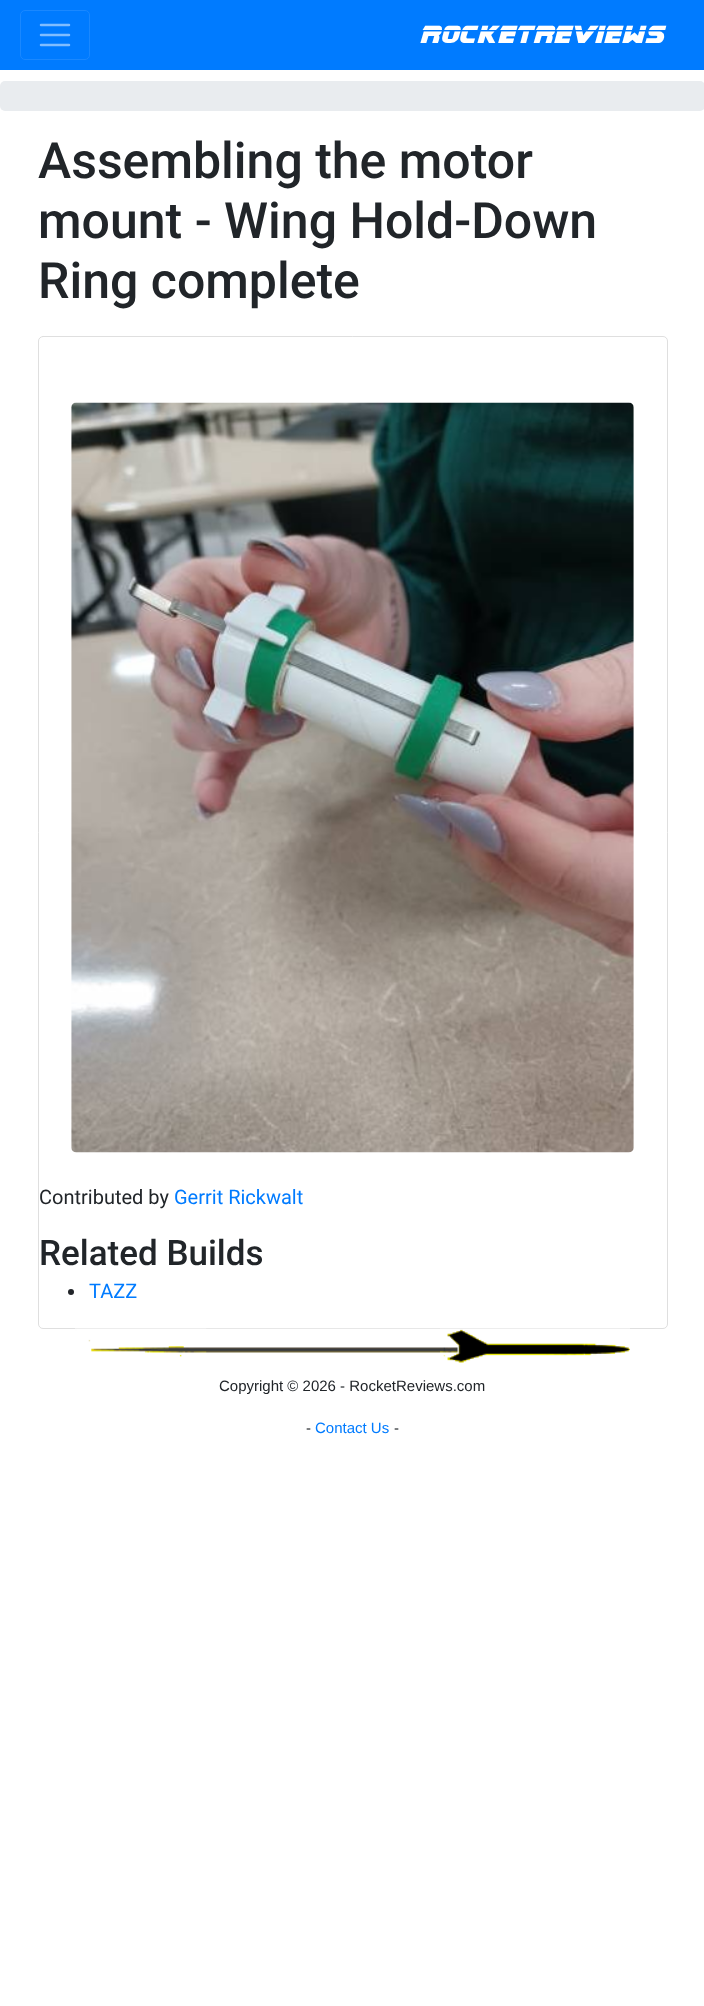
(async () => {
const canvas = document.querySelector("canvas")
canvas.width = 704
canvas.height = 2006
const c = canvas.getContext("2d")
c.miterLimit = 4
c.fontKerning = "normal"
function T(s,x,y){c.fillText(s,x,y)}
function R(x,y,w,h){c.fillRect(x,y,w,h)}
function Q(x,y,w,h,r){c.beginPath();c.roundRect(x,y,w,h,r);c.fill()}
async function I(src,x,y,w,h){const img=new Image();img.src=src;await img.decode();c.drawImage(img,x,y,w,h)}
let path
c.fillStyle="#fff"
R(0,0,704,2006)
c.fillStyle="#007bff"
R(0,0,704,70)
c.beginPath()
c.roundRect(20.5,10.5,69,49,4.5)
c.strokeStyle="#1a88ff"
c.stroke()
path = new Path2D("M41 25h28m-28 10h28m-28 10h28")
c.strokeStyle="#80bdff"
c.lineWidth=2.5
c.lineCap="round"
c.stroke(path)
c.font="italic bold 25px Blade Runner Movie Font"
c.fillStyle="#fff"
T("RocketReviews",421,43)
c.fillStyle="#e9ecef"
Q(0,81,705,30,5)
c.font="500 50px Roboto"
c.fillStyle="#212529"
T("Assembling the motor",38,178)
T("mount - Wing Hold-Down",38,238)
T("Ring complete",38,298)
c.beginPath()
c.roundRect(38.5,336.5,629,992,4.5)
c.strokeStyle="#dfdfdf"
c.lineWidth=1
c.stroke()
await I("1.png",71,402,563,751)
c.font="20px Roboto"
T("Contributed by",39,1204)
c.fillStyle="#007bff"
T("Gerrit Rickwalt",174,1204)
c.font="500 35px Roboto"
c.fillStyle="#212529"
T("Related Builds",39,1265)
c.beginPath()
c.arc(71,1292,3,0,7)
c.fill()
c.font="20px Roboto"
c.fillStyle="#007bff"
T("TAZZ",89,1298)
await I("2.png",75,1328,555,25)
await I("3.png",75,1328,132,29)
await I("4.png",440,1328,190,35)
c.font="15px Liberation Sans"
c.fillStyle="#212529"
T("Copyright © 2026 - RocketReviews.com",219,1391)
T("-",306,1433)
c.fillStyle="#007bff"
T("Contact Us",315,1433)
c.fillStyle="#212529"
T("-",394,1433)
})()
